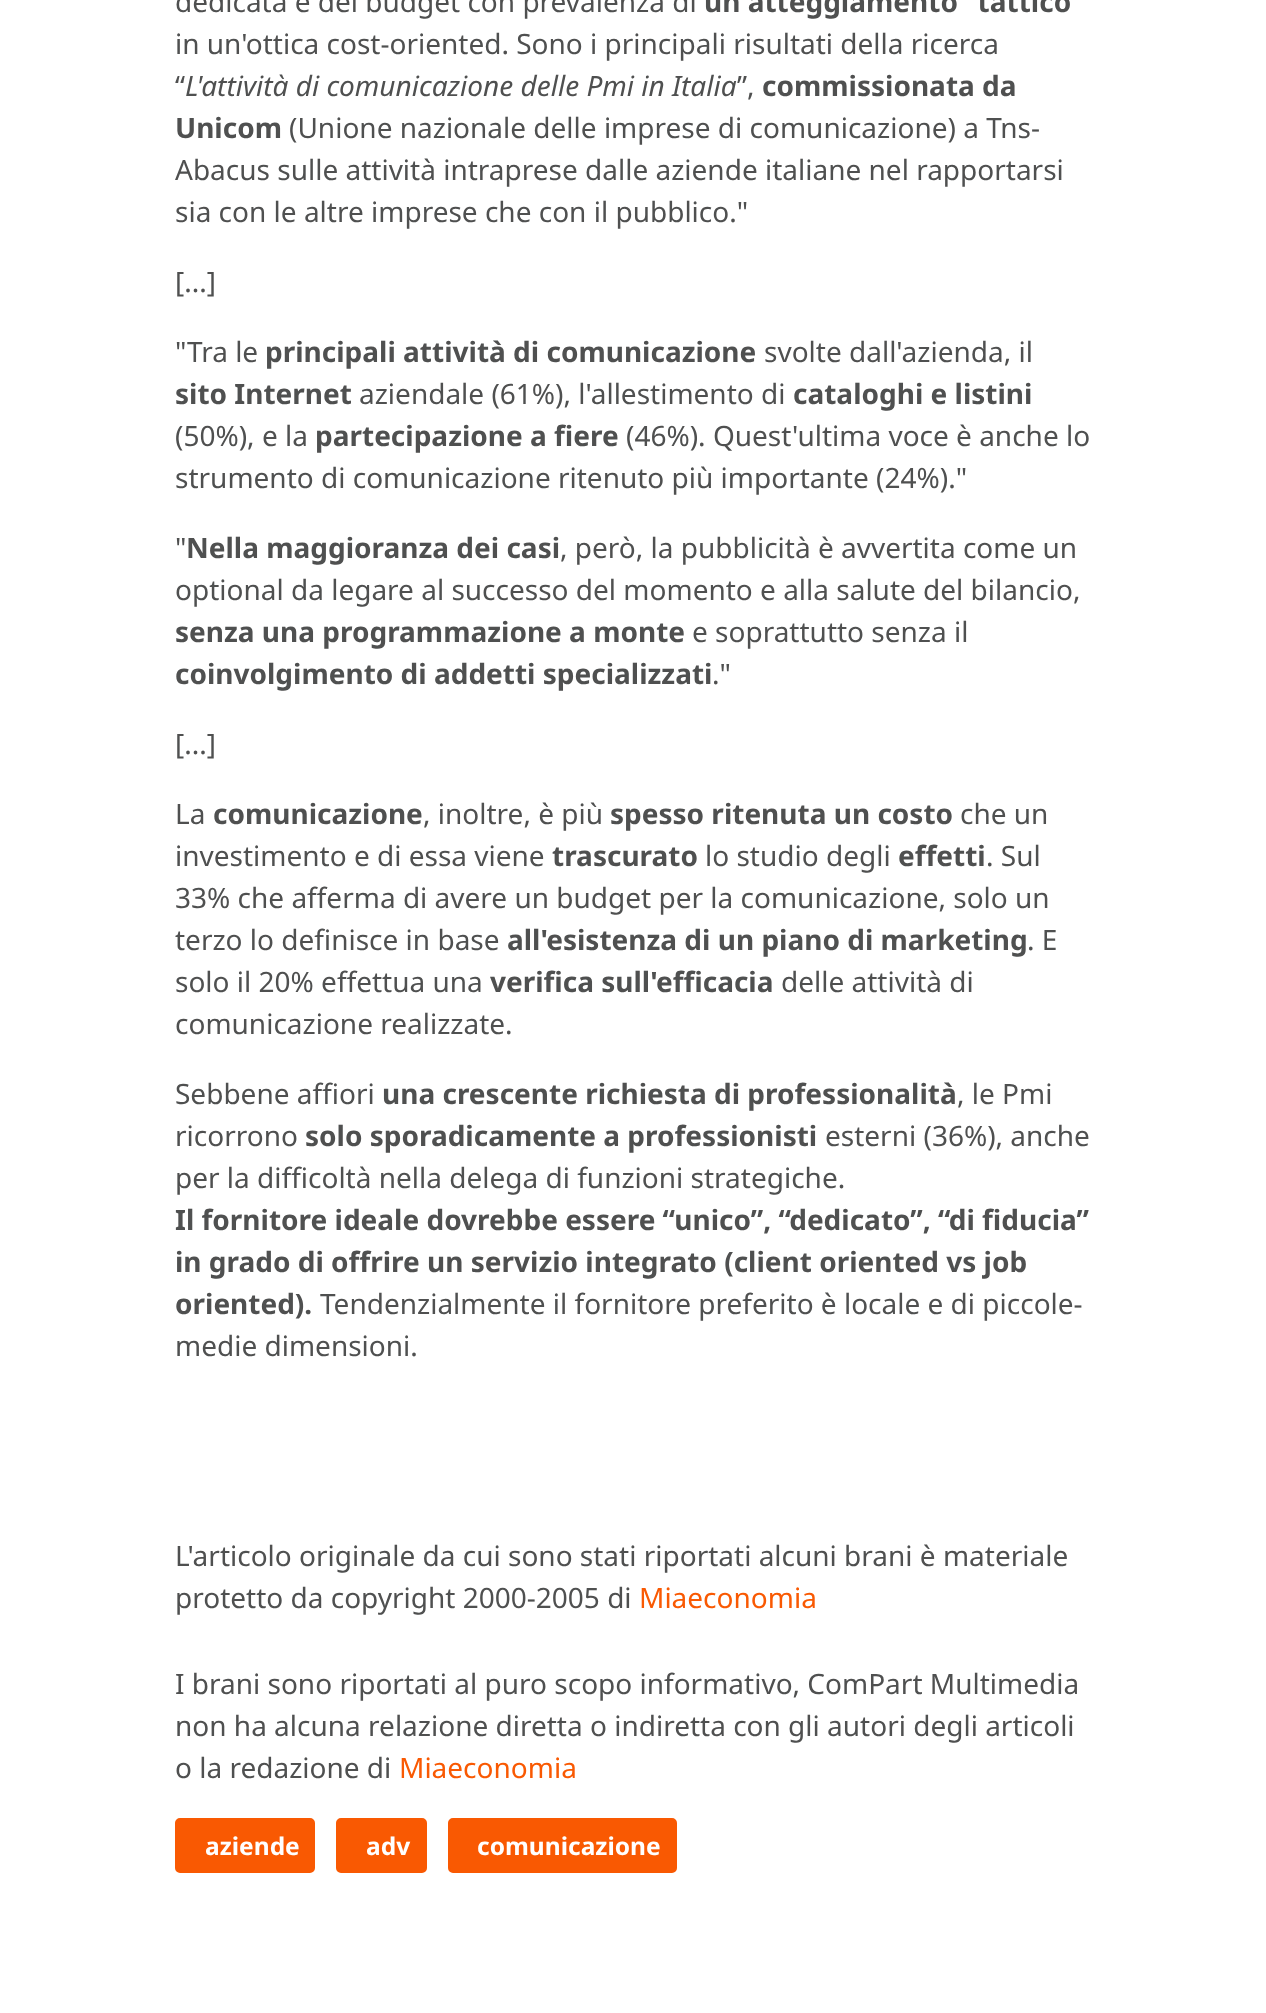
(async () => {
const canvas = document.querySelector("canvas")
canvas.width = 1266
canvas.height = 2013
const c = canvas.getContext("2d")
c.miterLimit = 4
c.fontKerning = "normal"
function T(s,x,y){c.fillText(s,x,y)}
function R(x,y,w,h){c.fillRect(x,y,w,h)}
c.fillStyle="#fff"
R(0,0,1266,2013)
c.font="28px Noto Sans"
c.fillStyle="#4f5050"
T("dedicata e del budget con prevalenza di",175,12)
c.font="bold 28px Noto Sans"
T("un atteggiamento “tattico",704,12)
c.font="28px Noto Sans"
T("in un'ottica cost-oriented. Sono i principali risultati della ricerca",175,54)
T("“",175,96)
c.font="italic 28px Noto Sans"
T("L'attività di comunicazione delle Pmi in Italia",185,96)
c.font="28px Noto Sans"
T("”,",737,96)
c.font="bold 28px Noto Sans"
T("commissionata da",762,96)
T("Unicom",175,138)
c.font="28px Noto Sans"
T("(Unione nazionale delle imprese di comunicazione) a Tns-",289,138)
T("Abacus sulle attività intraprese dalle aziende italiane nel rapportarsi",175,180)
T("sia con le altre imprese che con il pubblico.\"",175,222)
T("[...]",175,292)
T("\"Tra le",175,362)
c.font="bold 28px Noto Sans"
T("principali attività di comunicazione",265,362)
c.font="28px Noto Sans"
T("svolte dall'azienda, il",764,362)
c.font="bold 28px Noto Sans"
T("sito Internet",175,404)
c.font="28px Noto Sans"
T("aziendale (61%), l'allestimento di",359,404)
c.font="bold 28px Noto Sans"
T("cataloghi e listini",793,404)
c.font="28px Noto Sans"
T("(50%), e la",175,446)
c.font="bold 28px Noto Sans"
T("partecipazione a fiere",315,446)
c.font="28px Noto Sans"
T("(46%). Quest'ultima voce è anche lo",626,446)
T("strumento di comunicazione ritenuto più importante (24%).\"",175,488)
T("\"",175,558)
c.font="bold 28px Noto Sans"
T("Nella maggioranza dei casi",186,558)
c.font="28px Noto Sans"
T(", però, la pubblicità è avvertita come un",560,558)
T("optional da legare al successo del momento e alla salute del bilancio,",175,600)
c.font="bold 28px Noto Sans"
T("senza una programmazione a monte",175,642)
c.font="28px Noto Sans"
T("e soprattutto senza il",692,642)
c.font="bold 28px Noto Sans"
T("coinvolgimento di addetti specializzati",175,684)
c.font="28px Noto Sans"
T(".\"",712,684)
T("[...]",175,754)
T("La",175,824)
c.font="bold 28px Noto Sans"
T("comunicazione",213,824)
c.font="28px Noto Sans"
T(", inoltre, è più",423,824)
c.font="bold 28px Noto Sans"
T("spesso ritenuta un costo",610,824)
c.font="28px Noto Sans"
T("che un",960,824)
T("investimento e di essa viene",175,866)
c.font="bold 28px Noto Sans"
T("trascurato",552,866)
c.font="28px Noto Sans"
T("lo studio degli",705,866)
c.font="bold 28px Noto Sans"
T("effetti",898,866)
c.font="28px Noto Sans"
T(". Sul",986,866)
T("33% che afferma di avere un budget per la comunicazione, solo un",175,908)
T("terzo lo definisce in base",175,950)
c.font="bold 28px Noto Sans"
T("all'esistenza di un piano di marketing",507,950)
c.font="28px Noto Sans"
T(". E",1027,950)
T("solo il 20% effettua una",175,992)
c.font="bold 28px Noto Sans"
T("verifica sull'efficacia",490,992)
c.font="28px Noto Sans"
T("delle attività di",781,992)
T("comunicazione realizzate.",175,1034)
T("Sebbene affiori",175,1104)
c.font="bold 28px Noto Sans"
T("una crescente richiesta di professionalità",382,1104)
c.font="28px Noto Sans"
T(", le Pmi",957,1104)
T("ricorrono",175,1146)
c.font="bold 28px Noto Sans"
T("solo sporadicamente a professionisti",305,1146)
c.font="28px Noto Sans"
T("esterni (36%), anche",825,1146)
T("per la difficoltà nella delega di funzioni strategiche.",175,1188)
c.font="bold 28px Noto Sans"
T("Il fornitore ideale dovrebbe essere “unico”, “dedicato”, “di fiducia”",175,1230)
T("in grado di offrire un servizio integrato (client oriented vs job",175,1272)
T("oriented).",175,1314)
c.font="28px Noto Sans"
T("Tendenzialmente il fornitore preferito è locale e di piccole-",320,1314)
T("medie dimensioni.",175,1356)
T("L'articolo originale da cui sono stati riportati alcuni brani è materiale",175,1566)
T("protetto da copyright 2000-2005 di",175,1608)
c.fillStyle="#f95902"
T("Miaeconomia",639,1608)
c.fillStyle="#4f5050"
T("I brani sono riportati al puro scopo informativo, ComPart Multimedia",175,1694)
T("non ha alcuna relazione diretta o indiretta con gli autori degli articoli",175,1736)
T("o la redazione di",175,1778)
c.fillStyle="#f95902"
T("Miaeconomia",399,1778)
c.beginPath()
c.roundRect(176,1819,138,53,4)
c.fill()
c.strokeStyle="#f95902"
c.lineWidth=2
c.stroke()
c.font="bold 24.5px Noto Sans"
c.fillStyle="#fff"
T("aziende",205,1855)
c.fillStyle="#f95902"
c.beginPath()
c.roundRect(337,1819,89,53,4)
c.fill()
c.stroke()
c.fillStyle="#fff"
T("adv",366,1855)
c.fillStyle="#f95902"
c.beginPath()
c.roundRect(449,1819,227,53,4)
c.fill()
c.stroke()
c.fillStyle="#fff"
T("comunicazione",477,1855)
})()
